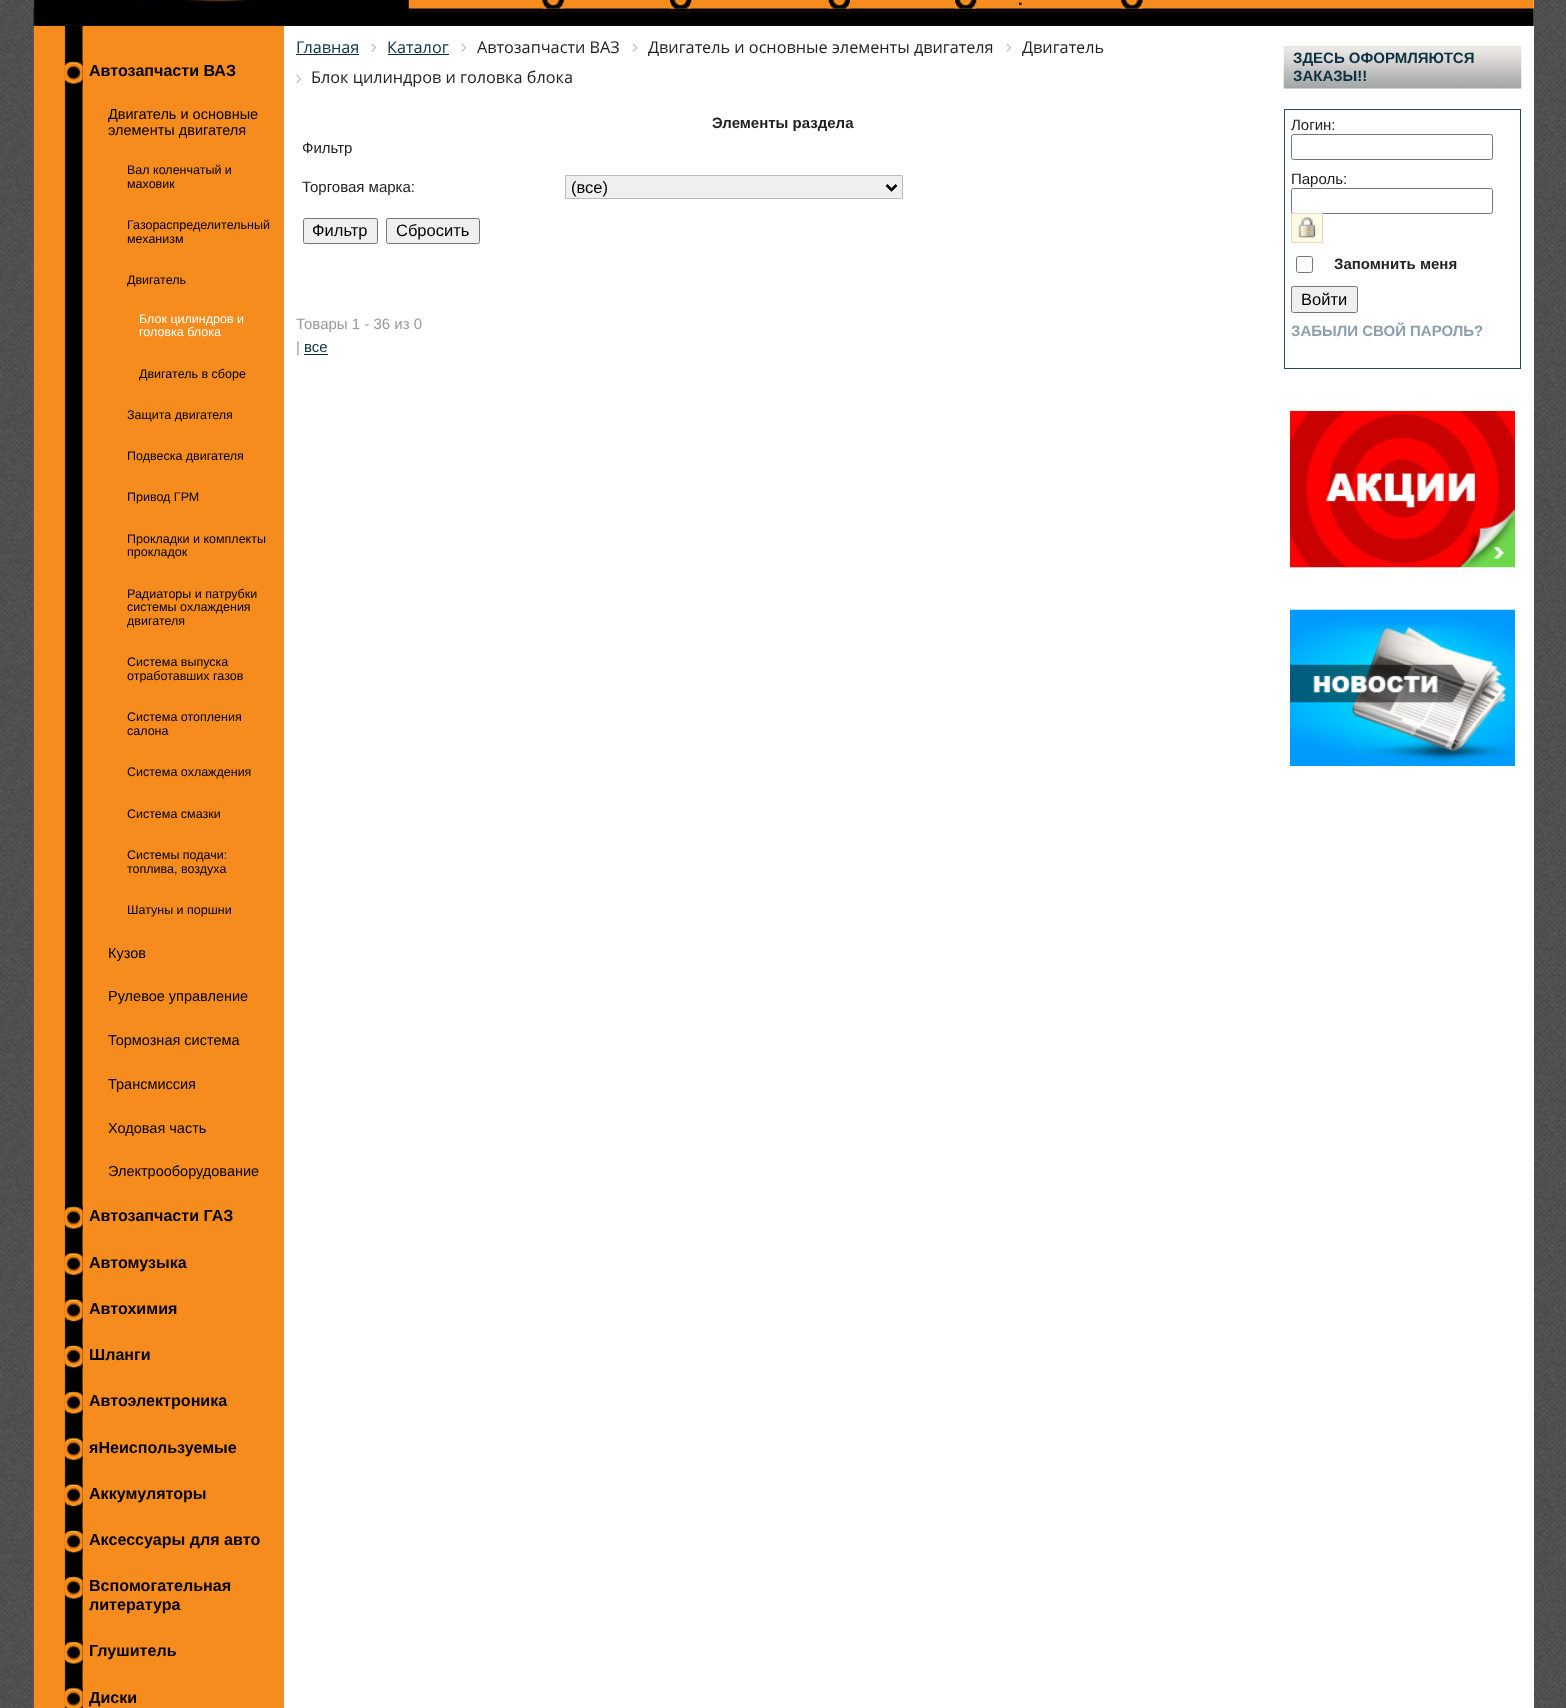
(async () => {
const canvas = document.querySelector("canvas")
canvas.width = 1566
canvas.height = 1708
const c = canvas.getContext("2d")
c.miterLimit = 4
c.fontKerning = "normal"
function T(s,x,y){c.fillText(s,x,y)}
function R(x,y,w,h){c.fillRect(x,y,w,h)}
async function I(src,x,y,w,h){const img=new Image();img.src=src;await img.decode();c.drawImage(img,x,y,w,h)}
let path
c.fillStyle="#fff"
R(0,0,1566,1708)
await I("1.png",0,0,1566,1708)
R(283,0,1251,1708)
await I("2.png",33,0,1501,26)
await I("3.png",33,0,376,26)
await I("4.png",542,0,22,9)
await I("5.png",670,0,22,9)
await I("6.png",828,0,22,9)
await I("5.png",955,0,22,9)
c.font="bold 16.25px Liberation Sans"
c.fillStyle="#000"
T(".",1018,5)
await I("7.png",1121,0,22,9)
await I("8.png",33,26,251,1682)
await I("9.png",33,26,251,1682)
await I("10.png",65,61,18,24)
c.font="bold 16.1px Liberation Sans"
T("Автозапчасти ВАЗ",89,76)
c.font="14.5px Liberation Sans"
T("Двигатель и основные",108,119)
T("элементы двигателя",108,135)
c.font="12.5px Liberation Sans"
T("Вал коленчатый и",127,174)
T("маховик",127,188)
T("Газораспределительный",127,229)
T("механизм",127,243)
T("Двигатель",127,284)
c.fillStyle="#fff"
T("Блок цилиндров и",139,323)
T("головка блока",139,336)
c.fillStyle="#000"
T("Двигатель в сборе",139,378)
T("Защита двигателя",127,419)
T("Подвеска двигателя",127,460)
T("Привод ГРМ",127,501)
T("Прокладки и комплекты",127,543)
T("прокладок",127,556)
T("Радиаторы и патрубки",127,598)
T("системы охлаждения",127,611)
T("двигателя",127,625)
T("Система выпуска",127,666)
T("отработавших газов",127,680)
T("Система отопления",127,721)
T("салона",127,735)
T("Система охлаждения",127,776)
T("Система смазки",127,818)
T("Системы подачи:",127,859)
T("топлива, воздуха",127,873)
T("Шатуны и поршни",127,914)
c.font="14.5px Liberation Sans"
T("Кузов",108,958)
T("Рулевое управление",108,1001)
T("Тормозная система",108,1045)
T("Трансмиссия",108,1089)
T("Ходовая часть",108,1133)
T("Электрооборудование",108,1176)
await I("10.png",65,1206,18,24)
c.font="bold 16.1px Liberation Sans"
T("Автозапчасти ГАЗ",89,1221)
await I("11.png",65,1252,18,24)
T("Автомузыка",89,1268)
await I("12.png",65,1298,18,25)
T("Автохимия",89,1314)
await I("13.png",65,1344,18,25)
T("Шланги",89,1360)
await I("10.png",65,1391,18,24)
T("Автоэлектроника",89,1406)
await I("11.png",65,1437,18,24)
T("яНеиспользуемые",89,1453)
await I("12.png",65,1483,18,25)
T("Аккумуляторы",89,1499)
await I("13.png",65,1529,18,25)
T("Аксессуары для авто",89,1545)
await I("10.png",65,1576,18,24)
T("Вспомогательная",89,1591)
T("литература",89,1610)
await I("10.png",65,1641,18,24)
T("Глушитель",89,1656)
await I("14.png",65,1687,18,21)
T("Диски",89,1703)
c.font="16.25px Open Sans"
c.fillStyle="#0b3043"
T("Главная",296,53)
R(296,54,63,1)
await I("15.png",371,43,6,9)
T("Каталог",387,53)
R(388,54,61,1)
await I("15.png",461,43,6,9)
c.fillStyle="#222"
T("Автозапчасти ВАЗ",477,53)
await I("16.png",632,43,6,9)
T("Двигатель и основные элементы двигателя",648,53)
await I("15.png",1006,43,6,9)
T("Двигатель",1022,53)
await I("17.png",296,74,6,9)
T("Блок цилиндров и головка блока",311,83)
c.font="bold 15px Liberation Sans"
T("Элементы раздела",712,128)
c.font="15px Liberation Sans"
T("Фильтр",302,153)
T("Торговая марка:",302,192)
c.fillStyle="#efefef"
c.beginPath()
c.rect(565.5,175.5,337,23)
c.fill()
c.strokeStyle="#bbb"
c.stroke()
path = new Path2D("M886.5 185l5 5l5-5")
c.strokeStyle="#000"
c.lineWidth=2.5
c.stroke(path)
c.font="16.5px Liberation Sans"
c.fillStyle="#000"
T("(все)",571,193)
c.fillStyle="#efefef"
c.beginPath()
c.roundRect(303.5,218.5,74,25,2)
c.fill()
c.strokeStyle="#767676"
c.lineWidth=1
c.stroke()
c.fillStyle="#000"
T("Фильтр",312,236)
c.fillStyle="#efefef"
c.beginPath()
c.roundRect(386.5,218.5,93,25,2)
c.fill()
c.stroke()
c.fillStyle="#000"
T("Сбросить",396,236)
c.font="15px Liberation Sans"
c.fillStyle="#999"
T("Товары 1 - 36 из 0",296,329)
T("|",296,352)
c.fillStyle="#0b3043"
T("все",304,352)
R(304,354,24,1)
await I("18.png",1283,46,239,43)
c.font="bold 15px Liberation Sans"
T("ЗДЕСЬ ОФОРМЛЯЮТСЯ",1293,63)
T("ЗАКАЗЫ!!",1293,81)
c.strokeStyle="#274b5d"
c.strokeRect(1284.5,109.5,236,259)
c.font="15px Liberation Sans"
c.fillStyle="#222"
T("Логин:",1291,130)
c.beginPath()
c.roundRect(1291.5,134.5,201,25,2)
c.strokeStyle="#767676"
c.stroke()
T("Пароль:",1291,184)
c.beginPath()
c.roundRect(1291.5,188.5,201,25,2)
c.stroke()
c.fillStyle="#fffae3"
c.beginPath()
c.rect(1291.5,213.5,31,29)
c.fill()
c.strokeStyle="#dedbc8"
c.stroke()
await I("19.png",1298,217,18,21)
c.beginPath()
c.roundRect(1296.5,256.5,16,16,2)
c.strokeStyle="#767676"
c.stroke()
c.font="bold 15px Liberation Sans"
c.fillStyle="#222"
T("Запомнить меня",1334,269)
c.fillStyle="#efefef"
c.beginPath()
c.roundRect(1291.5,286.5,66,26,2)
c.fill()
c.stroke()
c.font="16.5px Liberation Sans"
c.fillStyle="#000"
T("Войти",1301,305)
c.font="bold 15px Liberation Sans"
c.fillStyle="#8b9faa"
T("ЗАБЫЛИ СВОЙ ПАРОЛЬ?",1291,336)
await I("20.png",1290,411,225,157)
await I("21.png",1290,609,225,157)
})()
